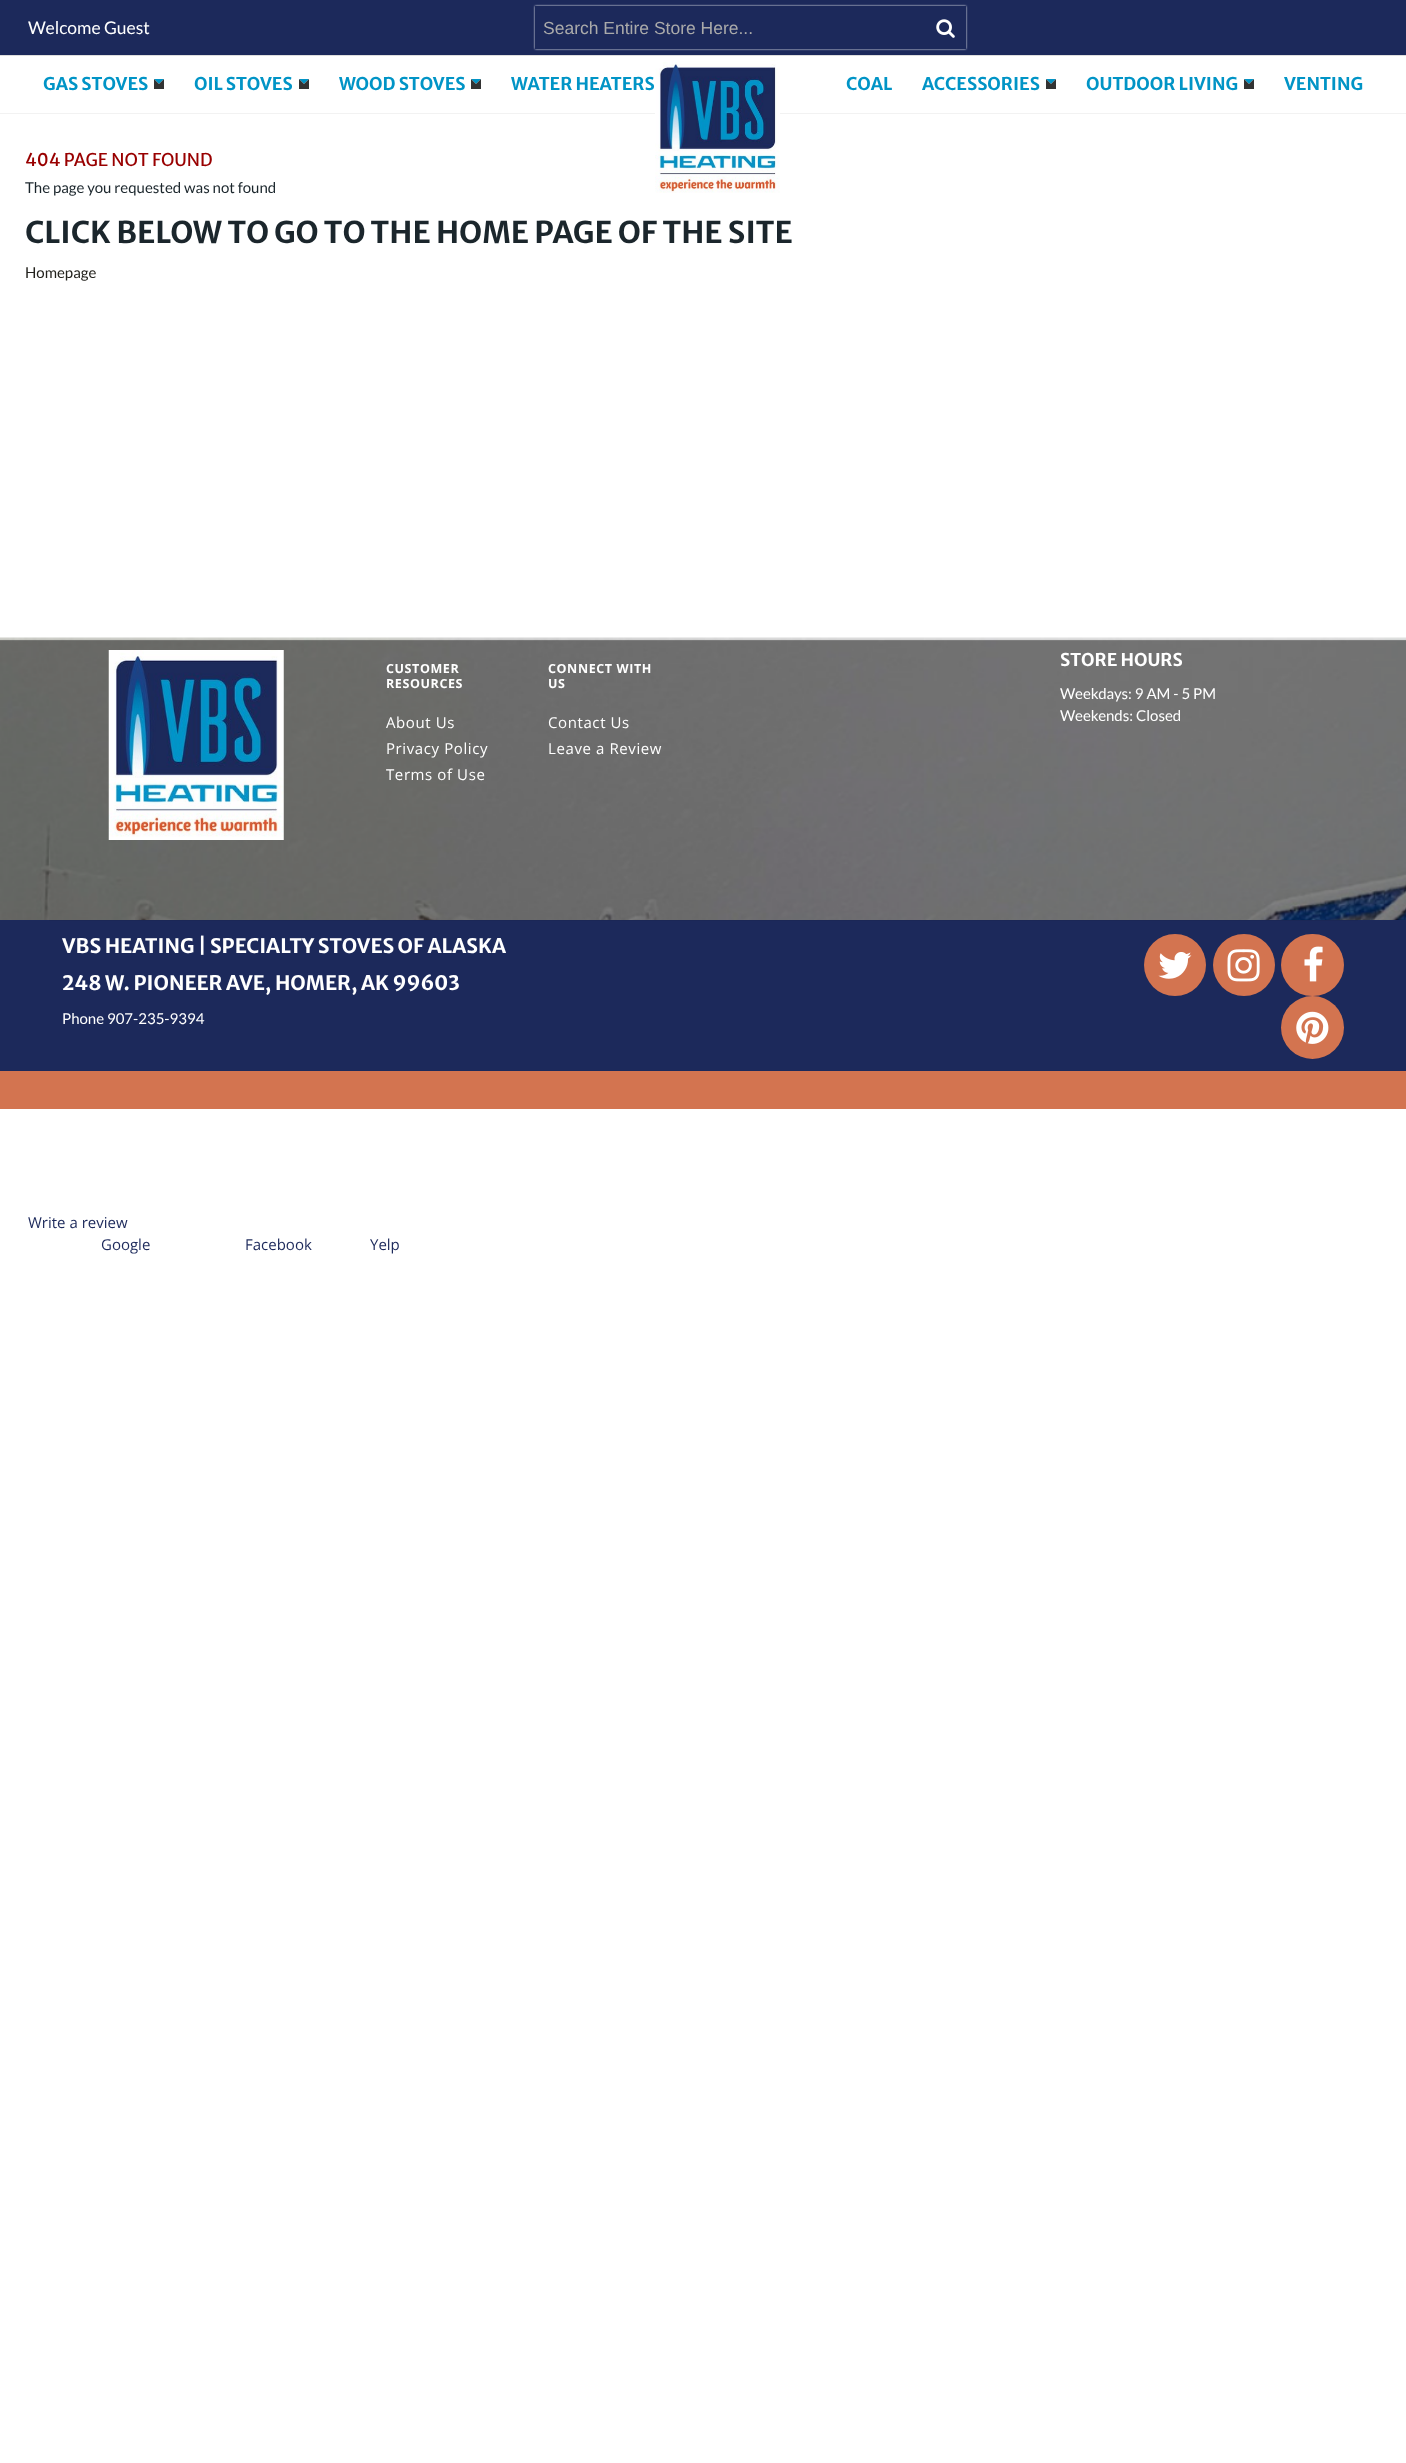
(async () => {
const canvas = document.querySelector("canvas")
canvas.width = 1406
canvas.height = 2463
const c = canvas.getContext("2d")
c.miterLimit = 4
c.fontKerning = "normal"
function T(s,x,y){c.fillText(s,x,y)}
function R(x,y,w,h){c.fillRect(x,y,w,h)}
function Q(x,y,w,h,r){c.beginPath();c.roundRect(x,y,w,h,r);c.fill()}
async function I(src,x,y,w,h){const img=new Image();img.src=src;await img.decode();c.drawImage(img,x,y,w,h)}
let path
c.fillStyle="#fff"
R(0,0,1406,2463)
c.fillStyle="#1c295b"
R(0,0,1406,55)
c.font="17.5px Lato"
c.fillStyle="#fff"
T("Welcome Guest",28,34)
c.save()
path = new Path2D("M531 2h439v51h-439zm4 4h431v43h-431z")
c.clip(path,"evenodd")
c.filter="blur(1px)"
c.beginPath()
c.rect(535,6,431,43)
c.fill()
c.filter="none"
c.restore()
c.font="17.5px Liberation Sans"
c.fillStyle="#aaa"
T("Search Entire Store Here...",543,34)
await I("1.png",936,19,19,19)
c.fillStyle="#ddd"
R(0,55,1406,1)
c.fillStyle="#f2f2f2"
R(0,113,1406,1)
await I("2.png",655,60,125,133)
c.font="bold 17.5px Merriweather Sans"
c.fillStyle="#0194c6"
T("GAS STOVES",43,90)
path = new Path2D("M154 79h10l-5 5z")
c.fill(path)
c.fillStyle="#333"
path = new Path2D("M164 79v10l-5-5z")
c.fill(path)
R(154,84,10,5)
path = new Path2D("M154 89v-10l5 5z")
c.fill(path)
c.fillStyle="#0194c6"
T("OIL STOVES",194,90)
path = new Path2D("M299 79h10l-5 5z")
c.fill(path)
c.fillStyle="#333"
path = new Path2D("M309 79v10l-5-5z")
c.fill(path)
R(299,84,10,5)
path = new Path2D("M299 89v-10l5 5z")
c.fill(path)
c.fillStyle="#0194c6"
T("WOOD STOVES",339,90)
path = new Path2D("M471 79h10l-5 5z")
c.fill(path)
c.fillStyle="#333"
path = new Path2D("M481 79v10l-5-5z")
c.fill(path)
R(471,84,10,5)
path = new Path2D("M471 89v-10l5 5z")
c.fill(path)
c.fillStyle="#0194c6"
T("WATER HEATERS",511,90)
T("COAL",846,90)
T("ACCESSORIES",922,90)
path = new Path2D("M1046 79h10l-5 5z")
c.fill(path)
c.fillStyle="#333"
path = new Path2D("M1056 79v10l-5-5z")
c.fill(path)
R(1046,84,10,5)
path = new Path2D("M1046 89v-10l5 5z")
c.fill(path)
c.fillStyle="#0194c6"
T("OUTDOOR LIVING",1086,90)
path = new Path2D("M1244 79h10l-5 5z")
c.fill(path)
c.fillStyle="#333"
path = new Path2D("M1254 79v10l-5-5z")
c.fill(path)
R(1244,84,10,5)
path = new Path2D("M1244 89v-10l5 5z")
c.fill(path)
c.fillStyle="#0194c6"
T("VENTING",1284,90)
c.font="17.5px Merriweather Sans"
c.fillStyle="#900"
T("404 PAGE NOT FOUND",25,166)
c.font="15px Lato"
c.fillStyle="#1b262c"
T("The page you requested was not found",25,193)
c.font="bold 30px Merriweather Sans"
T("CLICK BELOW TO GO TO THE HOME PAGE OF THE SITE",25,243)
c.font="15px Lato"
c.fillStyle="#23221d"
T("Homepage",25,278)
await I("3.png",0,637,1406,283)
await I("4.png",108,650,176,190)
c.letterSpacing="0.6px"
c.font="bold 12.5px Open Sans"
c.fillStyle="#fff"
T("CUSTOMER",386,673)
T("RESOURCES",386,688)
c.font="15px Open Sans"
T("About Us",386,728)
T("Privacy Policy",386,754)
T("Terms of Use",386,780)
c.font="bold 12.5px Open Sans"
T("CONNECT WITH",548,673)
T("US",548,688)
c.font="15px Open Sans"
T("Contact Us",548,728)
T("Leave a Review",548,754)
c.letterSpacing="0px"
c.font="bold 17.5px Merriweather Sans"
T("STORE HOURS",1060,666)
c.font="15px Lato"
T("Weekdays: 9 AM - 5 PM",1060,699)
T("Weekends: Closed",1060,721)
c.fillStyle="#1c295b"
R(0,920,1406,151)
c.fillStyle="#1b2756"
R(49,920,1309,1)
c.font="bold 20px Merriweather Sans"
c.fillStyle="#fff"
T("VBS HEATING | SPECIALTY STOVES OF ALASKA",62,953)
T("248 W. PIONEER AVE, HOMER, AK 99603",62,990)
c.font="15px Lato"
T("Phone 907-235-9394",62,1024)
c.fillStyle="#d37450"
c.beginPath()
c.arc(1175,965,31,0,7)
c.fill()
await I("5.png",1158,952,34,27)
c.beginPath()
c.arc(1244,965,31,0,7)
c.fill()
await I("6.png",1227,949,33,33)
Q(1281,934,63,62,31)
await I("7.png",1304,946,19,36)
c.beginPath()
c.arc(1312.5,1027.5,31.5,0,7)
c.fill()
await I("8.png",1296,1011,33,33)
R(0,1071,1406,38)
c.font="15px Open Sans"
c.fillStyle="#1c295b"
T("Write a review",28,1228)
T("Google",101,1250)
T("Facebook",245,1250)
T("Yelp",370,1250)
})()
